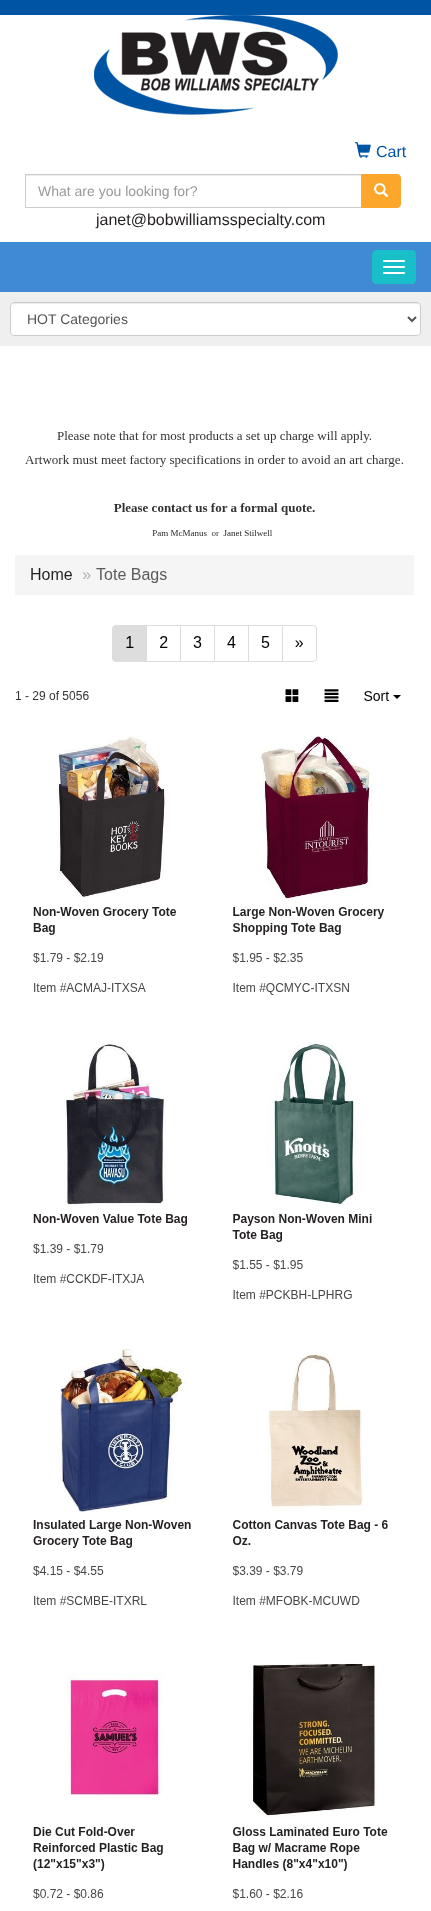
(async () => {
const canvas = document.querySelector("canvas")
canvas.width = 431
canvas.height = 1911
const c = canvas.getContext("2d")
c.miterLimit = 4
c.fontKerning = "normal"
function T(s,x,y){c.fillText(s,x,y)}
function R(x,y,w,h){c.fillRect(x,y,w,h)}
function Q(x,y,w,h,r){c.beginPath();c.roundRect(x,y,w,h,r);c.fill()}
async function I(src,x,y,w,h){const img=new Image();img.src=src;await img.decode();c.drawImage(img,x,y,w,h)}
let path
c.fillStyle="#0054a4"
R(0,0,431,1911)
c.fillStyle="#fff"
R(0,15,431,227)
await I("1.png",94,15,244,100)
await I("2.png",355,142,16,16)
c.font="16px Liberation Sans"
c.fillStyle="#0054a4"
T("Cart",376,157)
c.fillStyle="#ececec"
R(26,175,335,1)
c.strokeStyle="#ccc"
c.strokeRect(25.5,174.5,336,33)
c.font="14px Liberation Sans"
c.fillStyle="#999"
T("What are you looking for?",38,196)
c.fillStyle="#fca72c"
c.beginPath()
c.roundRect(361.5,174.5,39,33,[0,3.5,3.5,0])
c.fill()
c.strokeStyle="#fca72c"
c.stroke()
await I("3.png",374,183,15,14)
c.font="16px Liberation Sans"
c.fillStyle="#231f20"
T("janet@bobwilliamsspecialty.com",96,225)
c.fillStyle="#3f8ad2"
R(0,242,431,50)
c.fillStyle="#18bec8"
c.beginPath()
c.roundRect(372.5,250.5,43,33,3.5)
c.fill()
c.strokeStyle="#18bec8"
c.stroke()
c.fillStyle="#fff"
Q(383,260,22,2,1)
Q(383,266,22,2,1)
Q(383,272,22,2,1)
R(0,346,431,1565)
c.fillStyle="#efefef"
R(0,292,431,54)
c.fillStyle="#fff"
Q(10,302,411,34,4)
c.fillStyle="#ececec"
path = new Path2D("M14 304h403c2 0 3 1 3 3c0-2-1-4-3-4h-403c-2 0-3 2-3 4c0-2 1-3 3-3z")
c.fill(path)
c.beginPath()
c.roundRect(10.5,302.5,410,33,3.5)
c.strokeStyle="#ccc"
c.stroke()
path = new Path2D("M408 317l4 4l4-4")
c.strokeStyle="#555"
c.lineWidth=2
c.stroke(path)
c.font="14px Liberation Sans"
c.fillStyle="#555"
T("HOT Categories",27,324)
await I("4.png",15,431,399,1468)
})()
